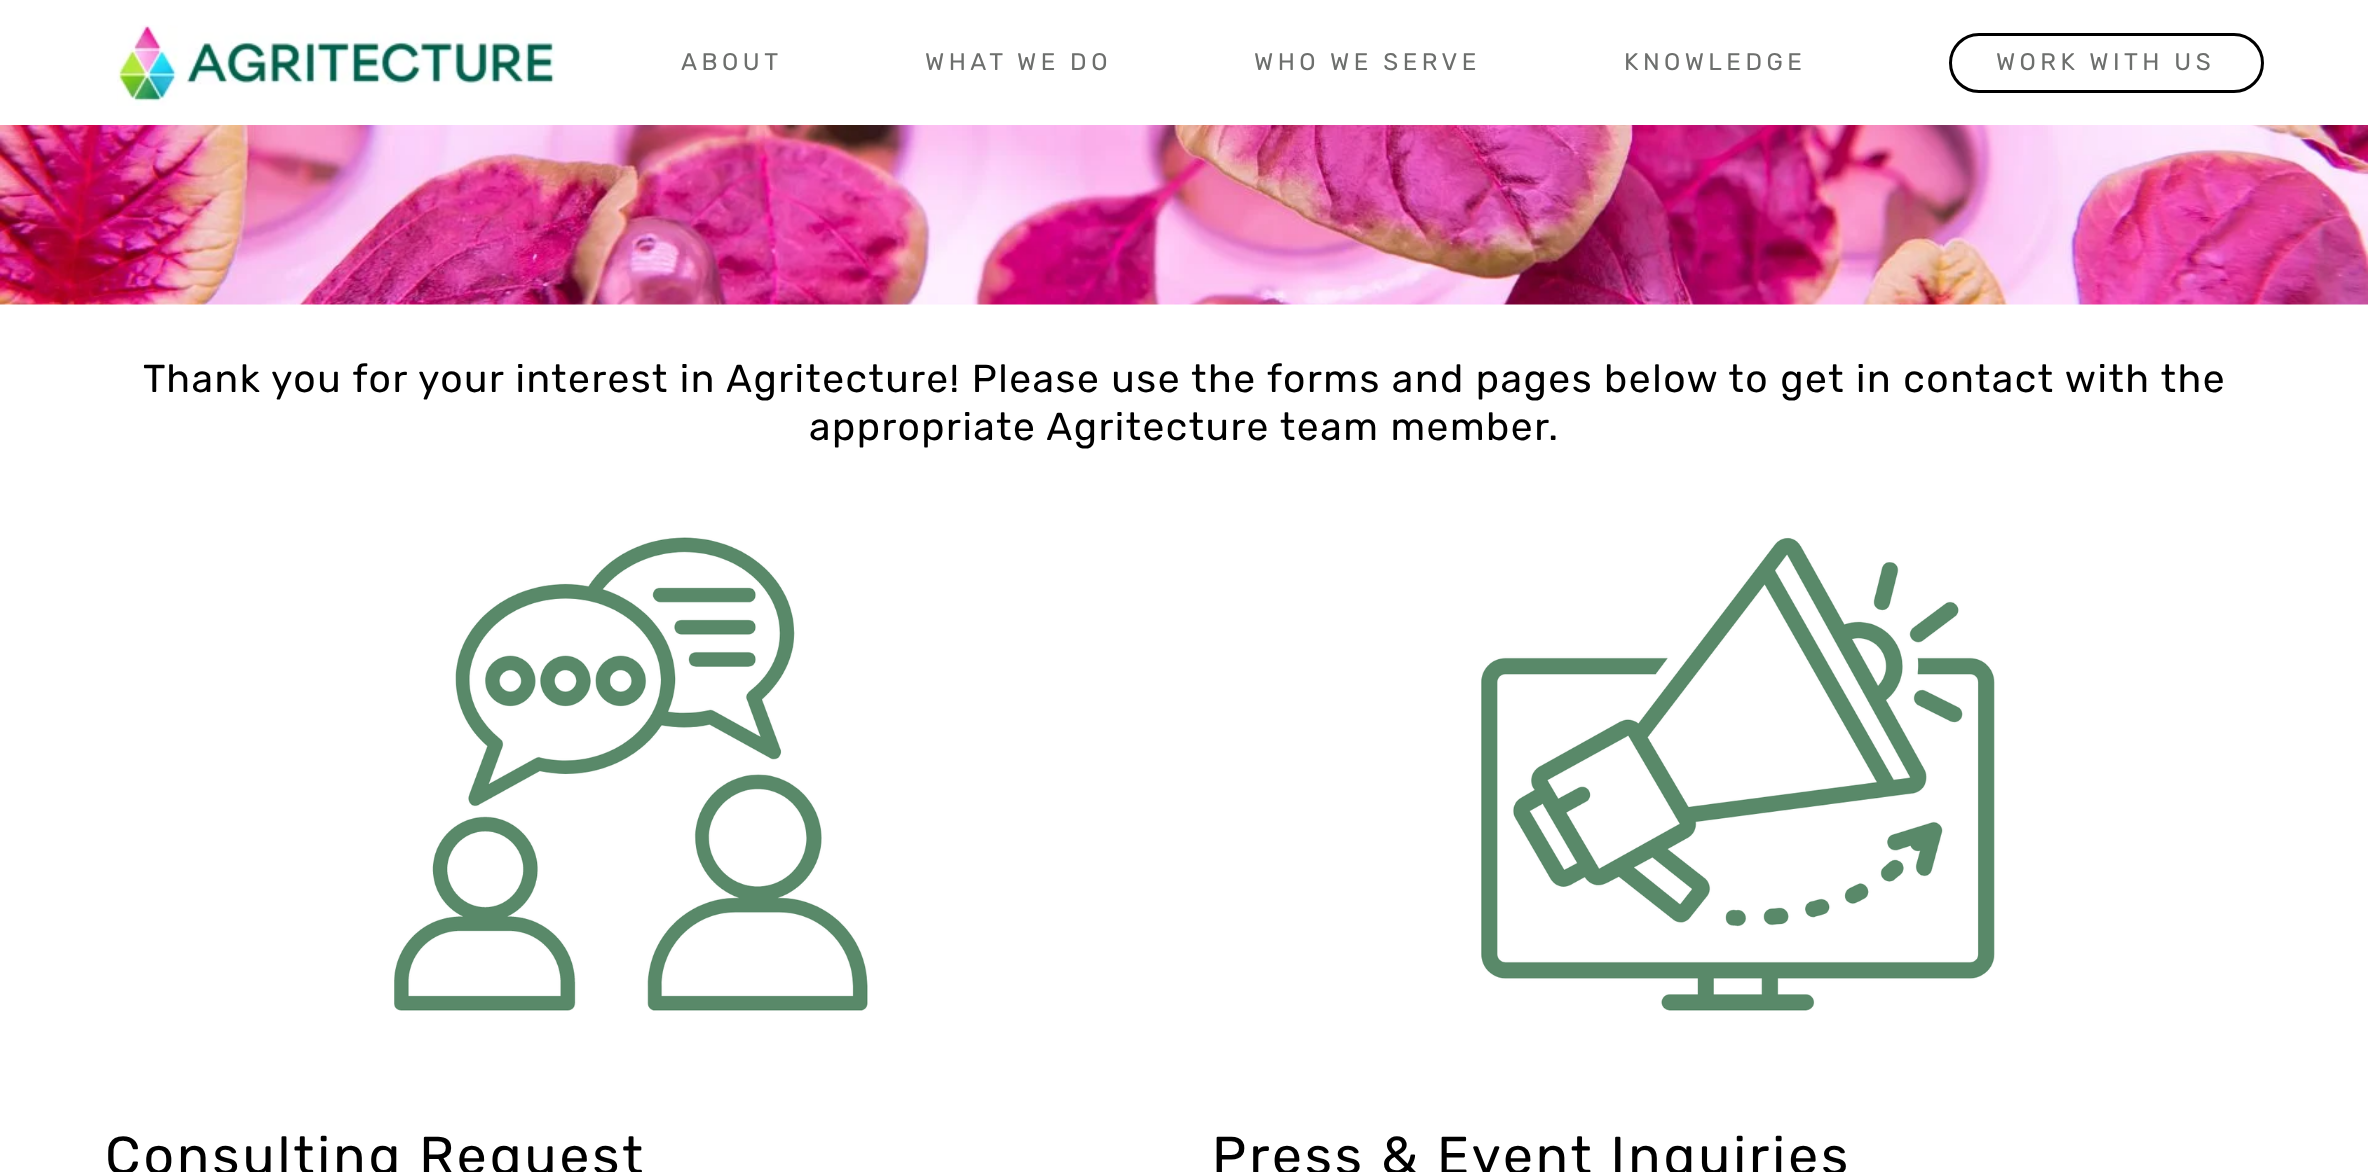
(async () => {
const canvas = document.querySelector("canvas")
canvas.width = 2368
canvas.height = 1172
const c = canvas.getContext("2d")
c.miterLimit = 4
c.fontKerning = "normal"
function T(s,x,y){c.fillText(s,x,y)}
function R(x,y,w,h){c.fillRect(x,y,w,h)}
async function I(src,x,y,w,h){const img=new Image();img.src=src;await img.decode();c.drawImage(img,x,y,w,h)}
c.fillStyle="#fff"
R(0,0,2368,1172)
await I("1.png",117,25,438,81)
c.letterSpacing="4.5px"
c.font="24px Rubik"
c.fillStyle="#6d6f6d"
T("ABOUT",681,70)
T("WHAT WE DO",925,70)
T("WHO WE SERVE",1254,70)
T("KNOWLEDGE",1624,70)
c.beginPath()
c.roundRect(1950.5,34.5,312,57,28.5)
c.strokeStyle="#000"
c.lineWidth=3
c.stroke()
T("WORK WITH US",1996,70)
await I("2.png",0,125,2368,180)
c.letterSpacing="1.5px"
c.font="39px Rubik"
c.fillStyle="#000"
T("Thank you for your interest in Agritecture! Please use the forms and pages below to get in contact with the",143,392)
T("appropriate Agritecture team member.",809,440)
await I("3.png",394,537,474,474)
c.letterSpacing="3px"
c.font="53.25px Rubik"
T("Consulting Request",105,1174)
await I("4.png",1481,537,514,474)
T("Press & Event Inquiries",1212,1174)
})()
